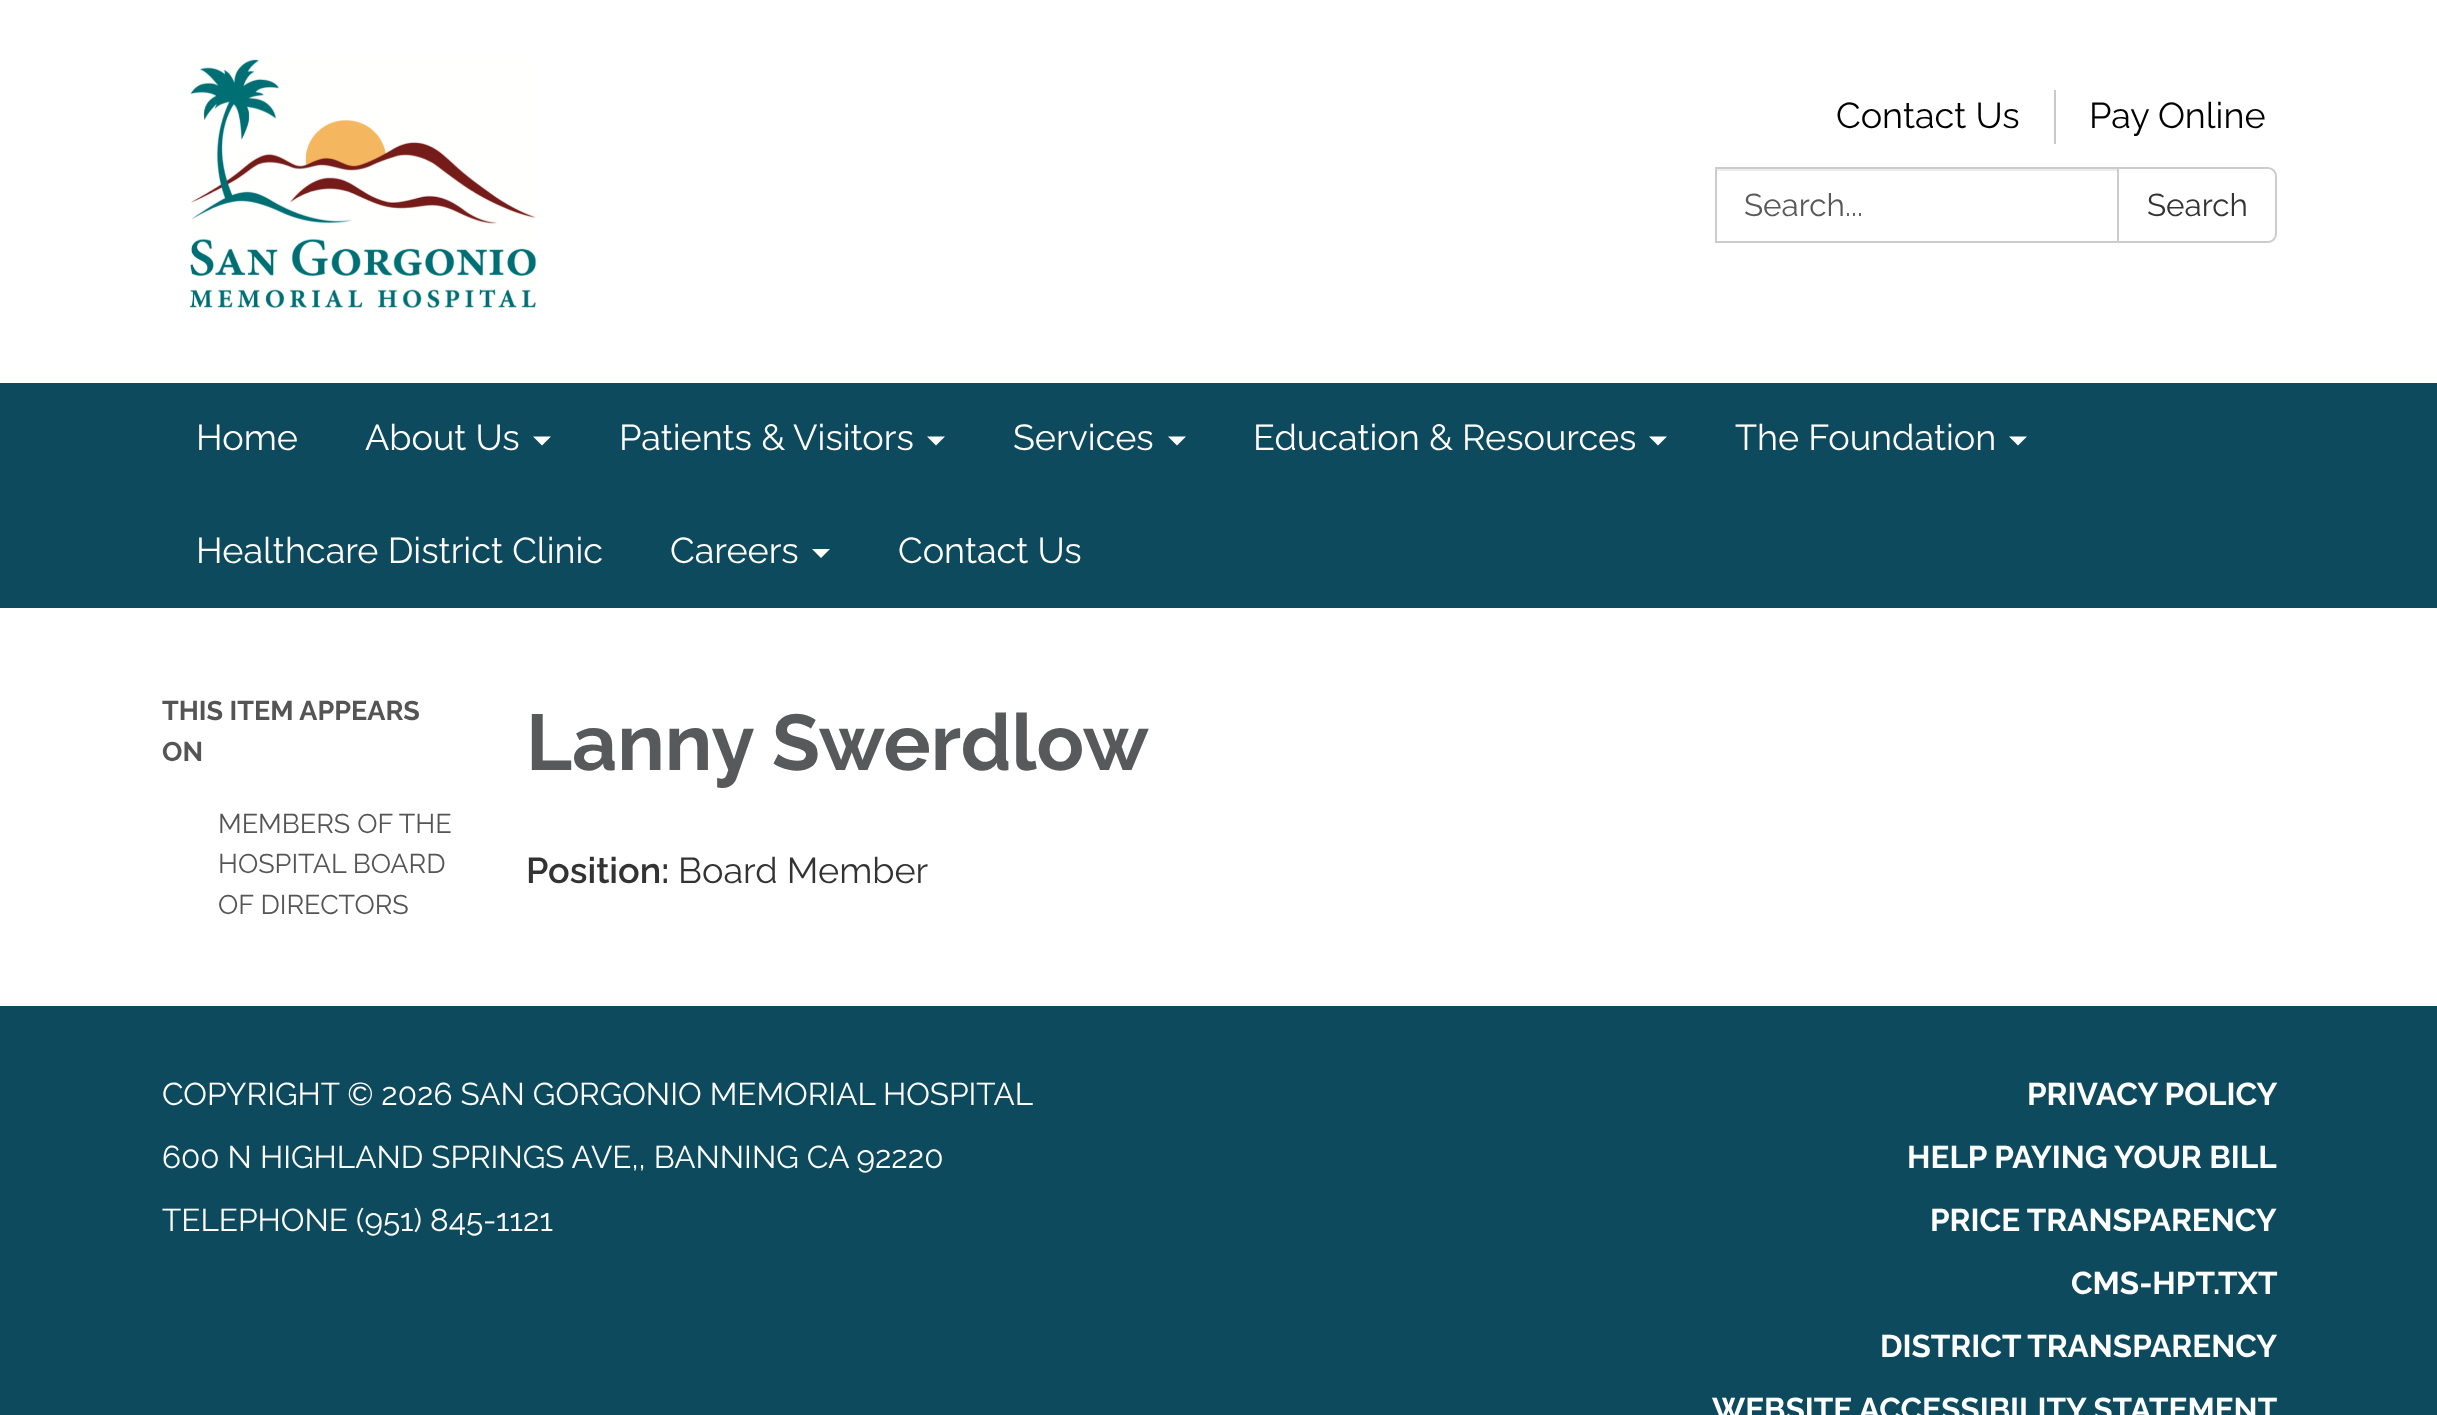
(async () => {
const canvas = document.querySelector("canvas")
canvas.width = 2437
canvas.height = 1415
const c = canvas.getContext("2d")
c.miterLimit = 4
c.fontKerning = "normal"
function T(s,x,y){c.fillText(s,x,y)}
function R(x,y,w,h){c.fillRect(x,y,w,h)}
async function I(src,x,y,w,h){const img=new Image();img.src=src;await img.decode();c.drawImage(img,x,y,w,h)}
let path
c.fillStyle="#0d4a5e"
R(0,0,2437,1415)
c.fillStyle="#fff"
R(0,0,2437,383)
await I("1.png",190,59,346,249)
c.font="36px Raleway"
c.fillStyle="#000"
T("Contact Us",1836,128)
c.fillStyle="#c8c9cb"
R(2054,90,2,54)
c.fillStyle="#000"
T("Pay Online",2089,128)
c.fillStyle="#ececec"
R(1717,169,400,2)
c.strokeStyle="#ccc"
c.lineWidth=2
c.strokeRect(1716,168,403,74)
c.font="31.5px Raleway"
c.fillStyle="#58595b"
T("Search...",1744,216)
c.fillStyle="#fff"
c.beginPath()
c.roundRect(2118,168,158,74,[0,8,8,0])
c.fill()
c.stroke()
c.fillStyle="#333"
T("Search",2147,216)
c.font="36px Raleway"
c.fillStyle="#fff"
T("Home",196,450)
T("About Us",365,450)
path = new Path2D("M533 436.5h18l-9 9z")
c.fill(path)
T("Patients & Visitors",619,450)
path = new Path2D("M927 436.5h18l-9 9z")
c.fill(path)
T("Services",1013,450)
path = new Path2D("M1168 436.5h18l-9 9z")
c.fill(path)
T("Education & Resources",1253,450)
path = new Path2D("M1649 436.5h18l-9 9z")
c.fill(path)
T("The Foundation",1735,450)
path = new Path2D("M2009 436.5h18l-9 9z")
c.fill(path)
T("Healthcare District Clinic",196,563)
T("Careers",670,563)
path = new Path2D("M812 549h18l-9 9z")
c.fill(path)
T("Contact Us",898,563)
R(0,608,2437,398)
c.font="bold 27px Raleway"
c.fillStyle="#555"
T("THIS ITEM APPEARS",162,720)
T("ON",162,761)
c.font="27px Raleway"
T("MEMBERS OF THE",218,833)
T("HOSPITAL BOARD",218,873)
T("OF DIRECTORS",218,914)
c.font="bold 78.75px Raleway"
c.fillStyle="#58595b"
T("Lanny Swerdlow",526,770)
c.font="600 36px Raleway"
c.fillStyle="#333"
T("Position:",526,883)
c.font="36px Raleway"
T("Board Member",678,883)
c.font="31.5px Raleway"
c.fillStyle="#fff"
T("COPYRIGHT © 2026 SAN GORGONIO MEMORIAL HOSPITAL",162,1105)
T("600 N HIGHLAND SPRINGS AVE,, BANNING CA 92220",162,1168)
T("TELEPHONE (951) 845-1121",162,1231)
c.font="bold 31.5px Raleway"
T("PRIVACY POLICY",2027,1105)
T("HELP PAYING YOUR BILL",1907,1168)
T("PRICE TRANSPARENCY",1930,1231)
T("CMS-HPT.TXT",2071,1294)
T("DISTRICT TRANSPARENCY",1880,1357)
T("WEBSITE ACCESSIBILITY STATEMENT",1712,1420)
})()
